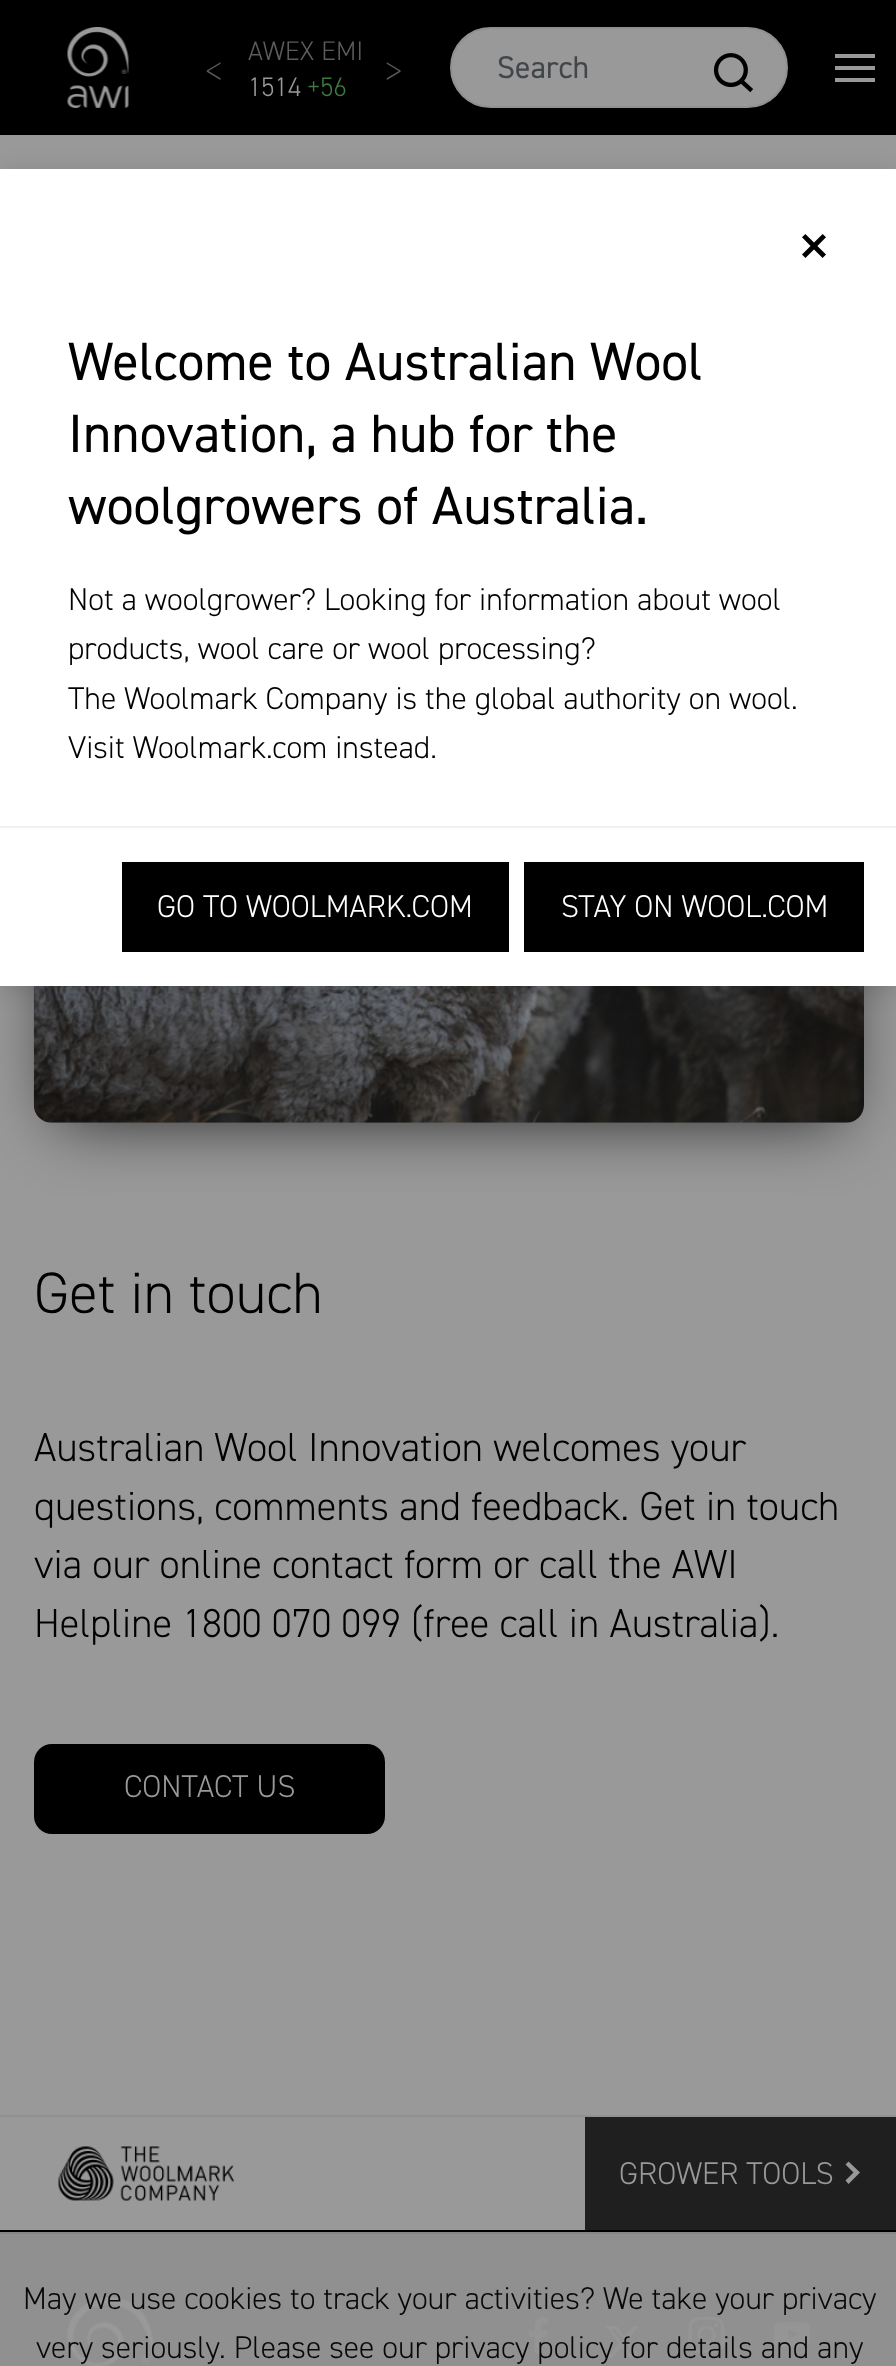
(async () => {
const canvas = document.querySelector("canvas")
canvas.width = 896
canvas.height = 2366
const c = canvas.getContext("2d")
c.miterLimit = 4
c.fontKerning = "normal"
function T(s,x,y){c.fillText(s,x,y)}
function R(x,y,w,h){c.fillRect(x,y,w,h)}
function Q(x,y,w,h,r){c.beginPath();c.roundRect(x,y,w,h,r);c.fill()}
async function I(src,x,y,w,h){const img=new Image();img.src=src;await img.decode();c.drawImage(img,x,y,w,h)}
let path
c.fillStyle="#999"
R(0,0,896,2366)
c.fillStyle="#000"
R(0,0,896,135)
await I("1.png",67,27,62,81)
c.font="200 45px 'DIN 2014'"
c.fillStyle="#5c5c5c"
T("<",205,87)
c.font="300 27px 'DIN 2014'"
T("AWEX EMI",248,60)
c.fillStyle="#999"
T("1514",248,96)
c.fillStyle="#3d7a3d"
T("+56",307,96)
c.font="200 45px 'DIN 2014'"
c.fillStyle="#5c5c5c"
T(">",385,87)
c.fillStyle="#999"
c.beginPath()
c.roundRect(451,28,336,79,39.5)
c.fill()
c.strokeStyle="#909090"
c.lineWidth=2
c.stroke()
c.font="31.65px 'DIN 2014'"
c.fillStyle="#41464b"
T("Search",497,78)
await I("2.png",713,53,41,40)
c.fillStyle="#999"
path = new Path2D("M875 66v4h-40v-4zm0-12v4h-40v-4zm0 24v4h-40v-4z")
c.fill(path)
c.fillStyle="#000000cc"
c.filter="blur(34px)"
c.beginPath()
c.rect(56,333,786,785)
c.fill()
c.filter="none"
await I("3.png",33,986,831,137)
c.fillStyle="#0000001a"
c.filter="blur(11px)"
c.beginPath()
c.rect(-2,171,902,821)
c.fill()
c.filter="none"
c.fillStyle="#fff"
R(0,169,896,817)
c.font="68px 'DIN 2014'"
c.fillStyle="#000"
T("×",797,270)
c.font="54px 'DIN 2014'"
T("Welcome to Australian Wool",68,380)
T("Innovation, a hub for the",68,452)
T("woolgrowers of Australia.",68,524)
c.font="300 31.65px 'DIN 2014'"
T("Not a woolgrower? Looking for information about wool",68,610)
T("products, wool care or wool processing?",68,659)
T("The Woolmark Company is the global authority on wool.",68,709)
T("Visit Woolmark.com instead.",68,758)
c.fillStyle="#f0f0f0"
R(0,826,896,2)
c.fillStyle="#000"
R(122,862,387,90)
c.fillStyle="#fff"
T("GO TO WOOLMARK.COM",157,917)
c.fillStyle="#000"
R(524,862,340,90)
c.fillStyle="#fff"
T("STAY ON WOOL.COM",561,917)
c.font="300 58.5px 'DIN 2014'"
c.fillStyle="#000"
T("Get in touch",34,1313)
c.font="300 40.5px 'DIN 2014'"
T("Australian Wool Innovation welcomes your",34,1461)
T("questions, comments and feedback. Get in touch",34,1520)
T("via our online contact form or call the AWI",34,1578)
T("Helpline 1800 070 099 (free call in Australia).",34,1637)
Q(34,1744,351,90,18)
c.font="300 31.65px 'DIN 2014'"
c.fillStyle="#999"
T("CONTACT US",124,1797)
c.fillStyle="#909090"
R(0,2115,896,2)
await I("4.png",58,2146,177,55)
c.fillStyle="#1f1f1f"
R(585,2117,311,113)
c.fillStyle="#999"
T("GROWER TOOLS",619,2184)
path = new Path2D("M848.5 2161.5l-3 3l8 8l-8 8l3 3.5l11.5-11.5z")
c.fill(path)
c.fillStyle="#000"
R(0,2230,896,2)
c.fillStyle="#909090"
R(0,2234,896,132)
await I("5.png",67,2297,88,69)
await I("6.png",528,2317,20,37)
await I("7.png",605,2325,36,34)
await I("8.png",688,2316,37,37)
await I("9.png",774,2322,36,26)
c.fillStyle="#868686"
R(0,2232,896,2)
c.fillStyle="#080808"
T("May we use cookies to track your activities? We take your privacy",23,2309)
T("very seriously. Please see our privacy policy for details and any",36,2358)
})()
